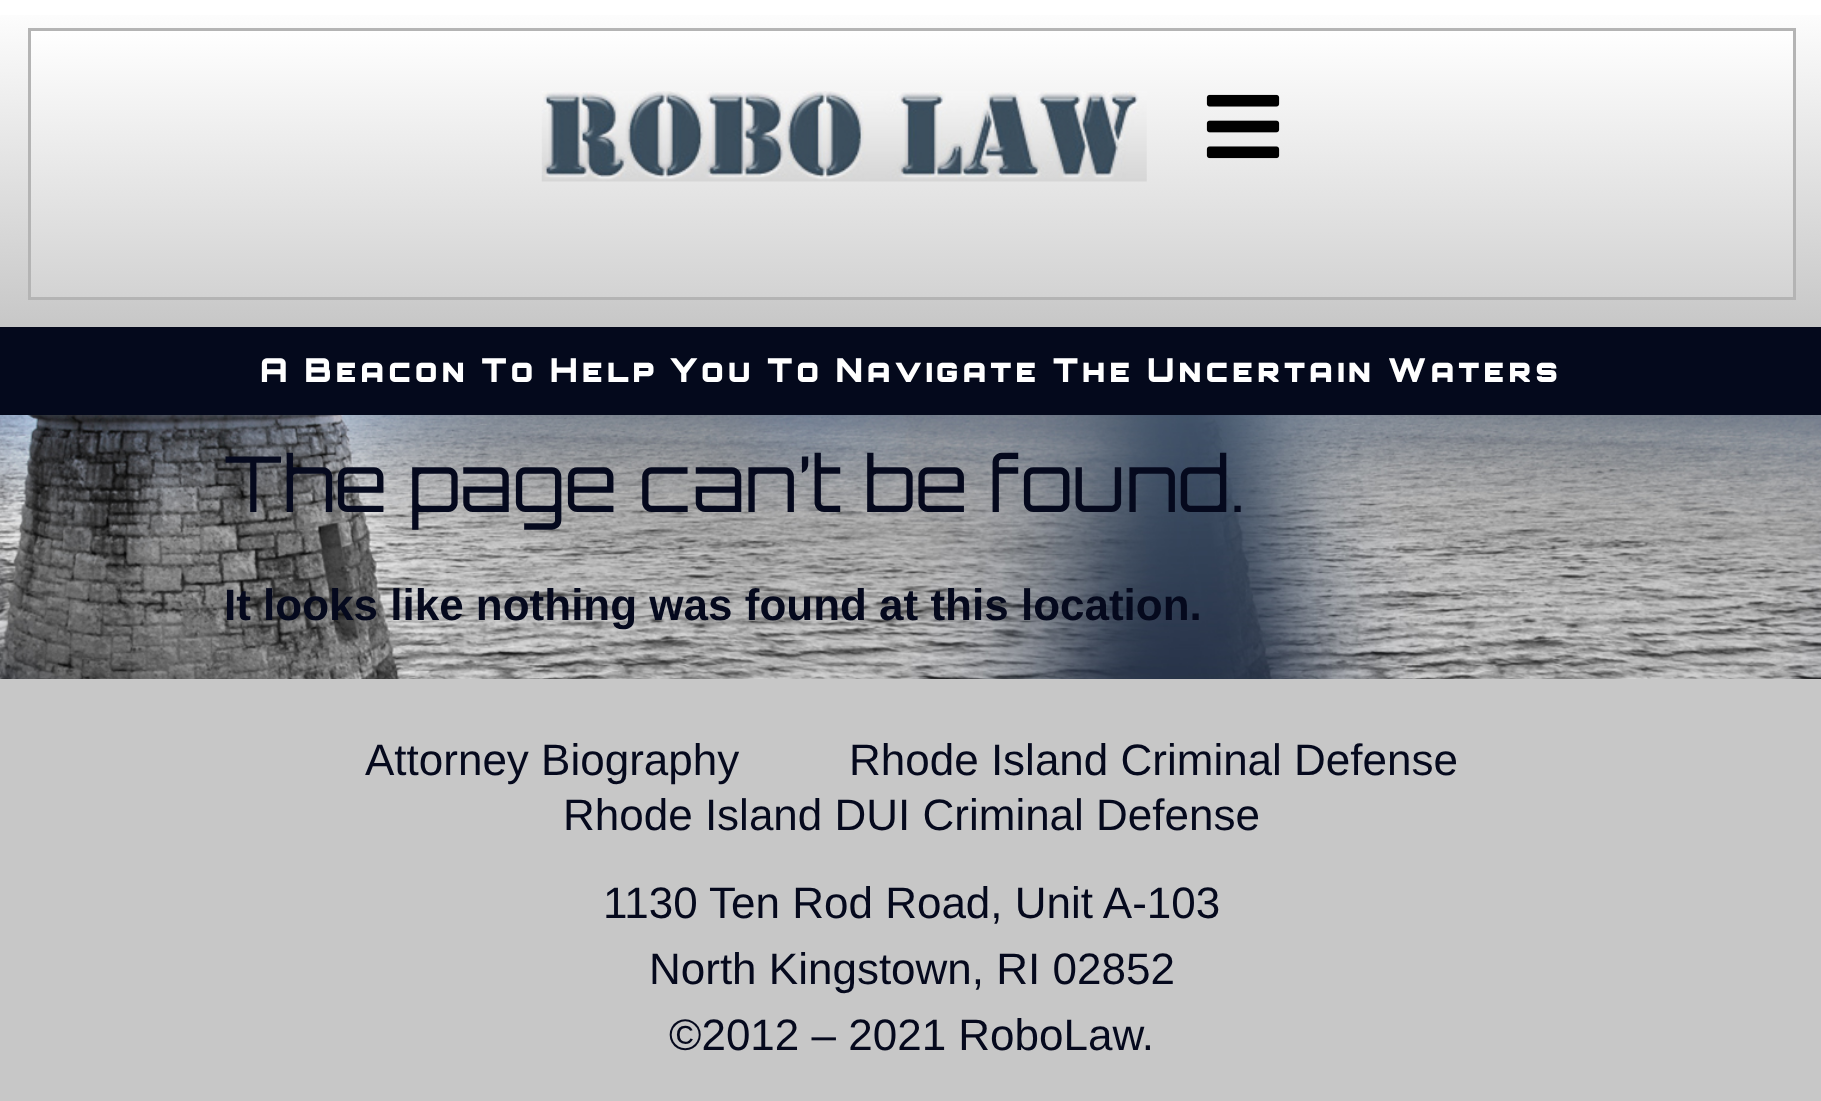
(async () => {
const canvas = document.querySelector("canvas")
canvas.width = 1821
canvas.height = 1101
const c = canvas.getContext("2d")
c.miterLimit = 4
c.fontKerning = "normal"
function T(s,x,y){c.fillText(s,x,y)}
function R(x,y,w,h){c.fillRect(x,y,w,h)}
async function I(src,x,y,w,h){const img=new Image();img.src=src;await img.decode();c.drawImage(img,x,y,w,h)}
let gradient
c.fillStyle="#fff"
R(0,0,1821,1101)
await I("1.png",0,415,1821,264)
gradient = c.createLinearGradient(912,0,912,327)
gradient.addColorStop(0,"#fff")
gradient.addColorStop(1,"#c7c7c7")
c.fillStyle = gradient
R(0,15,1821,312)
gradient = c.createLinearGradient(912,30,912,297)
gradient.addColorStop(0,"#fff")
gradient.addColorStop(1,"#d3d3d3")
c.fillStyle = gradient
R(31,31,1762,266)
c.strokeStyle="#b4b4b4"
c.lineWidth=3
c.strokeRect(29.5,29.5,1765,269)
await I("2.png",541,91,606,91)
await I("3.png",1206,94,74,65)
c.fillStyle="#04091c"
R(0,327,1821,88)
c.letterSpacing="3.85px"
c.wordSpacing="-1.75px"
c.font="900 33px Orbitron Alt"
c.fillStyle="#fff"
T("A Beacon To Help You To Navigate The Uncertain Waters",260,382)
c.letterSpacing="0px"
c.wordSpacing="0px"
c.font="77px Orbitron"
c.fillStyle="#05091d"
T("The page can’t be found.",224,512)
c.font="bold 44px Liberation Sans"
T("It looks like nothing was found at this location.",224,620)
c.fillStyle="#c7c7c7"
R(0,679,1821,422)
c.font="44px Liberation Sans"
c.fillStyle="#05091d"
T("Attorney Biography",365,775)
T("Rhode Island Criminal Defense",849,775)
T("Rhode Island DUI Criminal Defense",563,830)
T("1130 Ten Rod Road, Unit A-103",603,918)
T("North Kingstown, RI 02852",649,984)
T("©2012 – 2021 RoboLaw.",669,1050)
})()
